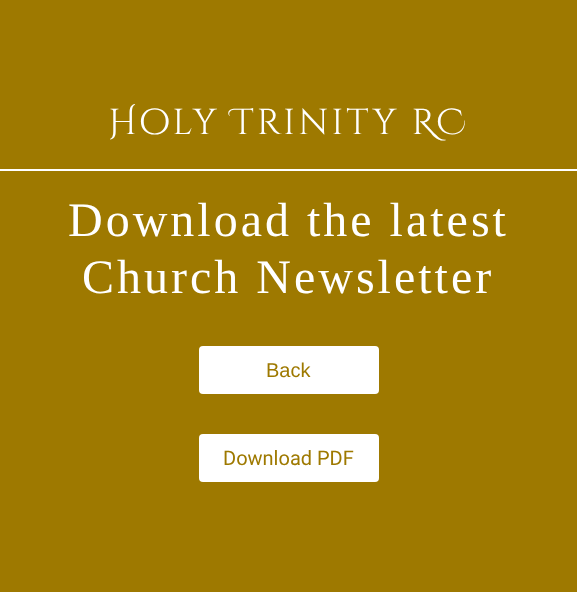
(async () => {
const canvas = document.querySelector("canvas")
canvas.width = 577
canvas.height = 592
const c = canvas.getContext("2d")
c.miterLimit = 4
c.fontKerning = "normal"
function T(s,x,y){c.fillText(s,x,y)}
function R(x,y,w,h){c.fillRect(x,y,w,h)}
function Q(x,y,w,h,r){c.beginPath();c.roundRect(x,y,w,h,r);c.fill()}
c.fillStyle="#9e7900"
R(0,0,577,592)
c.fillStyle="#fff"
R(0,169,577,2)
c.letterSpacing="3px"
c.font="36px Cinzel Decorative"
T("Holy Trinity RC",108,134)
c.font="48px Liberation Serif"
T("Download the latest",68,236)
T("Church Newsletter",82,293)
Q(199,346,180,48,4)
c.letterSpacing="0px"
c.font="20px Liberation Sans"
c.fillStyle="#9e7900"
T("Back",266,377)
c.fillStyle="#fff"
Q(199,434,180,48,4)
c.font="20px Roboto"
c.fillStyle="#9e7900"
T("Download PDF",223,465)
})()
